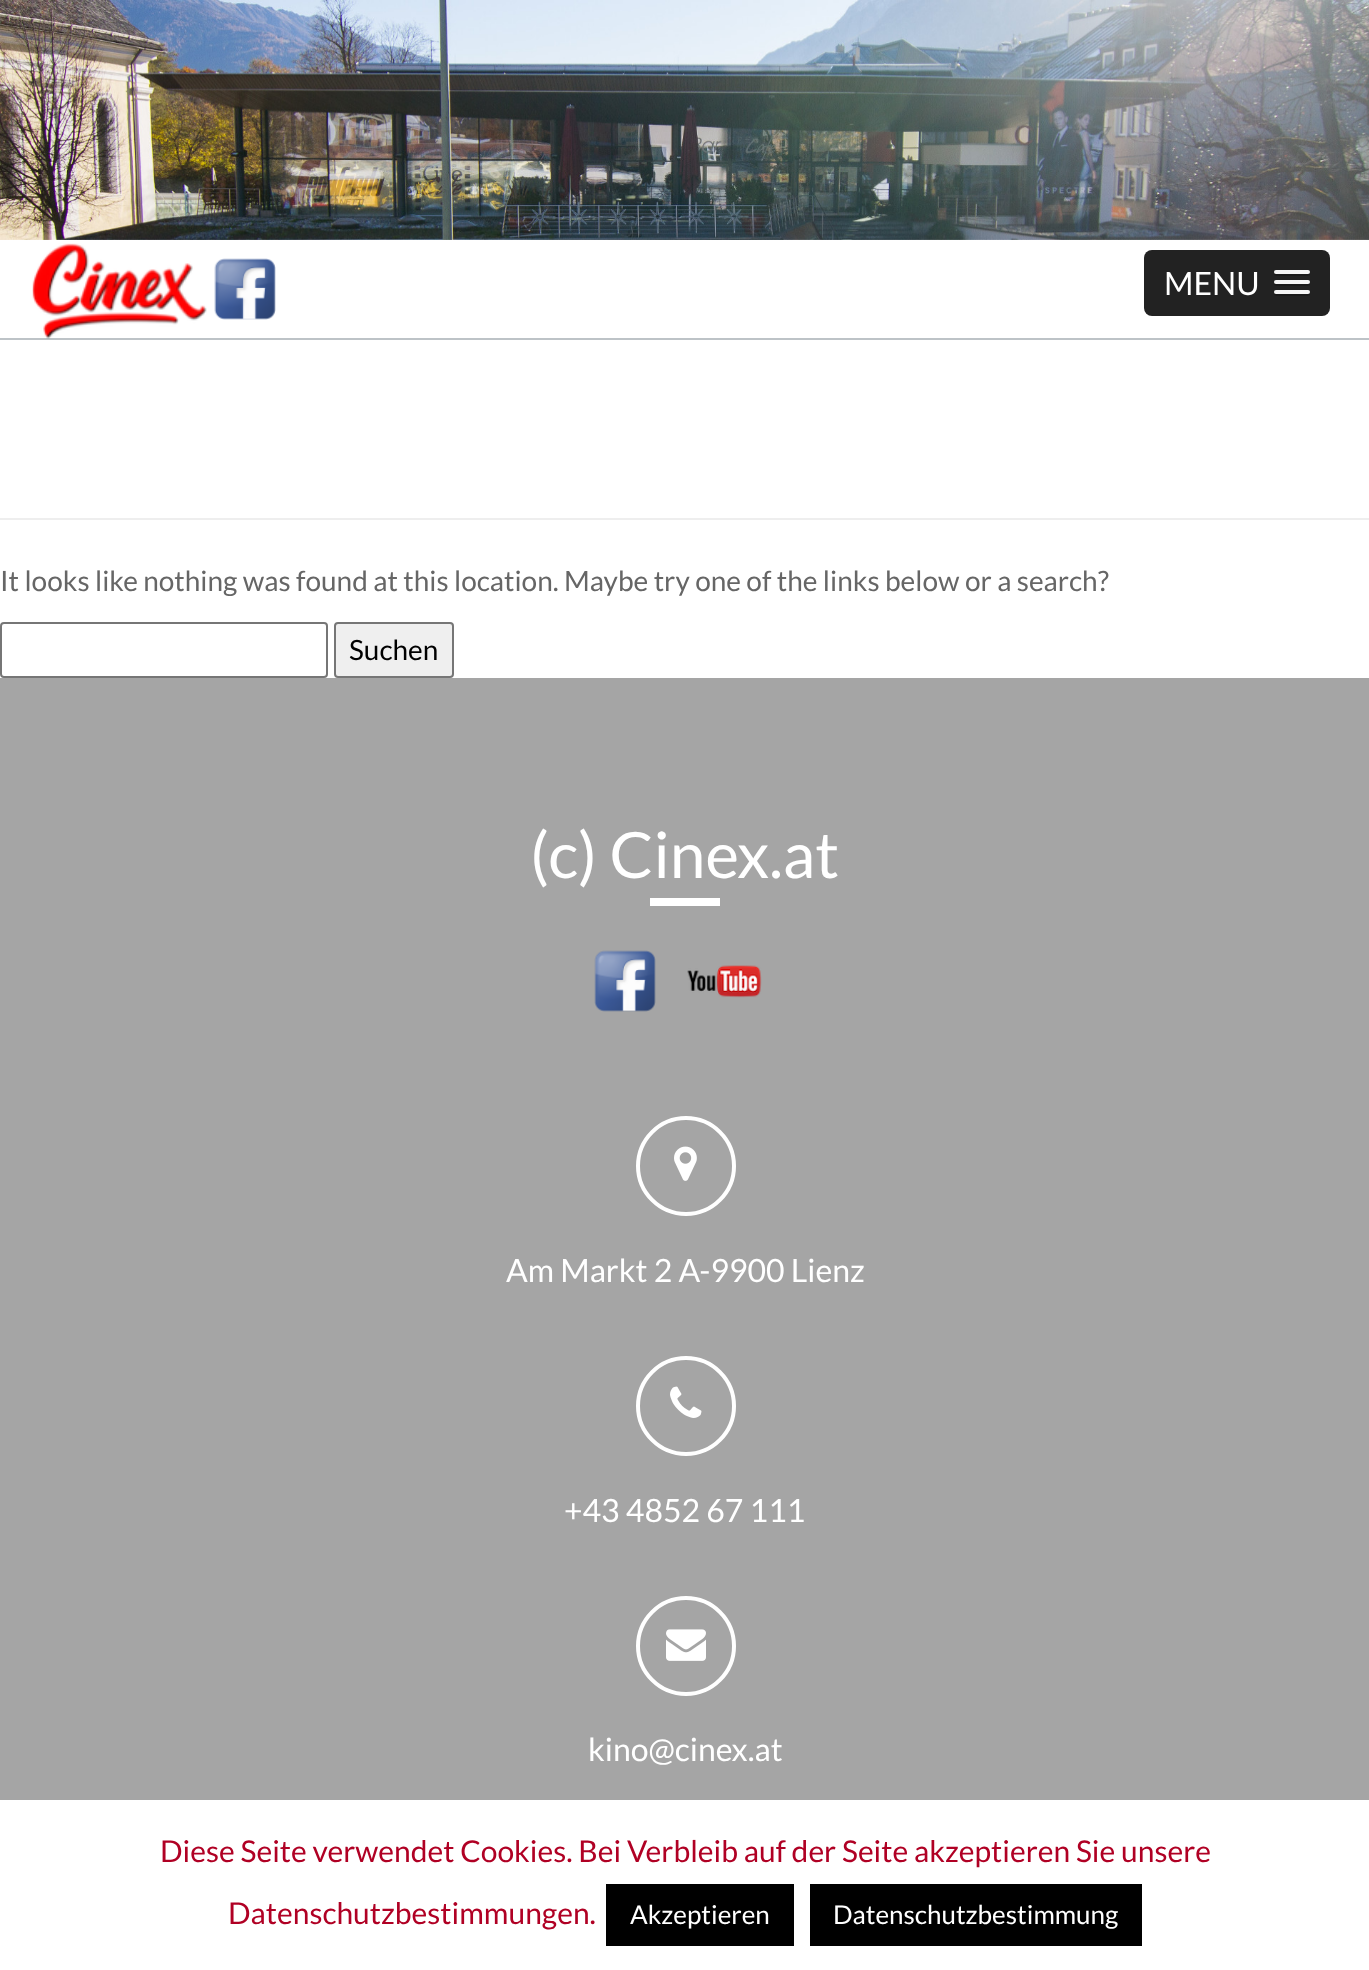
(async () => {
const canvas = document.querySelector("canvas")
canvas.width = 1369
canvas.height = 1970
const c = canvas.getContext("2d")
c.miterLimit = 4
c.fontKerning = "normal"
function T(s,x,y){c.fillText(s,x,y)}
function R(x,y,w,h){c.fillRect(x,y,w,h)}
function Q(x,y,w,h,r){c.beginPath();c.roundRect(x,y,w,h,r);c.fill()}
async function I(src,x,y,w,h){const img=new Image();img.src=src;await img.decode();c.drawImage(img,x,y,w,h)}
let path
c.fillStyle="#fff"
R(0,0,1369,1970)
await I("1.png",0,0,1369,240)
c.fillStyle="#bdc3c7"
R(0,338,1369,2)
await I("2.png",32,243,175,96)
await I("3.png",214,258,62,62)
c.fillStyle="#222"
Q(1144,250,186,66,8)
c.font="32px Lato"
c.fillStyle="#fff"
T("MENU",1164,295)
c.fillStyle="#1a1a1a"
path = new Path2D("M1274.5 273c-2.5 4 6.5 3 7 3h21c.5 0 9.5 1 7-3c0 .5-1 1-1.5 1h-32c-.5 0-1.5-.5-1.5-1z")
c.fill(path)
c.fillStyle="#f5f5f5"
Q(1274,270,36,4,2)
c.fillStyle="#1a1a1a"
path = new Path2D("M1274.5 283c-2.5 4 6.5 3 7 3h21c.5 0 9.5 1 7-3c0 .5-1 1-1.5 1h-32c-.5 0-1.5-.5-1.5-1z")
c.fill(path)
c.fillStyle="#f5f5f5"
Q(1274,280,36,4,2)
c.fillStyle="#1a1a1a"
path = new Path2D("M1274.5 293c-2.5 4 6.5 3 7 3h21c.5 0 9.5 1 7-3c0 .5-1 1-1.5 1h-32c-.5 0-1.5-.5-1.5-1z")
c.fill(path)
c.fillStyle="#f5f5f5"
Q(1274,290,36,4,2)
c.fillStyle="#eee"
R(0,518,1369,2)
c.font="28px Lato"
c.fillStyle="#666"
T("It looks like nothing was found at this location. Maybe try one of the links below or a search?",0,591)
c.beginPath()
c.roundRect(1,623,326,54,3)
c.strokeStyle="#767676"
c.lineWidth=2
c.stroke()
c.fillStyle="#efefef"
c.beginPath()
c.roundRect(335,623,118,54,3)
c.fill()
c.stroke()
c.fillStyle="#000"
T("Suchen",349,660)
c.fillStyle="#a5a5a5"
R(0,678,1369,1122)
c.font="64px Lato"
c.fillStyle="#fff"
T("(c) Cinex.at",530,878)
R(650,898,70,8)
await I("4.png",594,950,62,62)
await I("5.png",687,965,75,33)
c.beginPath()
c.arc(686,1166,48,0,7)
c.strokeStyle="#fff"
c.lineWidth=4
c.stroke()
await I("6.png",674,1146,23,35)
c.font="32px Lato"
T("Am Markt 2 A-9900 Lienz",506,1282)
c.beginPath()
c.arc(686,1406,48,0,7)
c.stroke()
await I("7.png",670,1386,32,32)
T("+43 4852 67 111",564,1522)
c.beginPath()
c.arc(686,1646,48,0,7)
c.stroke()
await I("8.png",666,1629,40,32)
T("kino@cinex.at",588,1761)
c.font="30px Lato"
c.fillStyle="#b00024"
T("Diese Seite verwendet Cookies. Bei Verbleib auf der Seite akzeptieren Sie unsere",160,1862)
T("Datenschutzbestimmungen.",228,1924)
c.fillStyle="#000"
R(606,1884,188,62)
c.font="26px Lato"
c.fillStyle="#fff"
T("Akzeptieren",630,1924)
c.fillStyle="#000"
R(810,1884,332,62)
c.fillStyle="#fff"
T("Datenschutzbestimmung",833,1924)
})()
